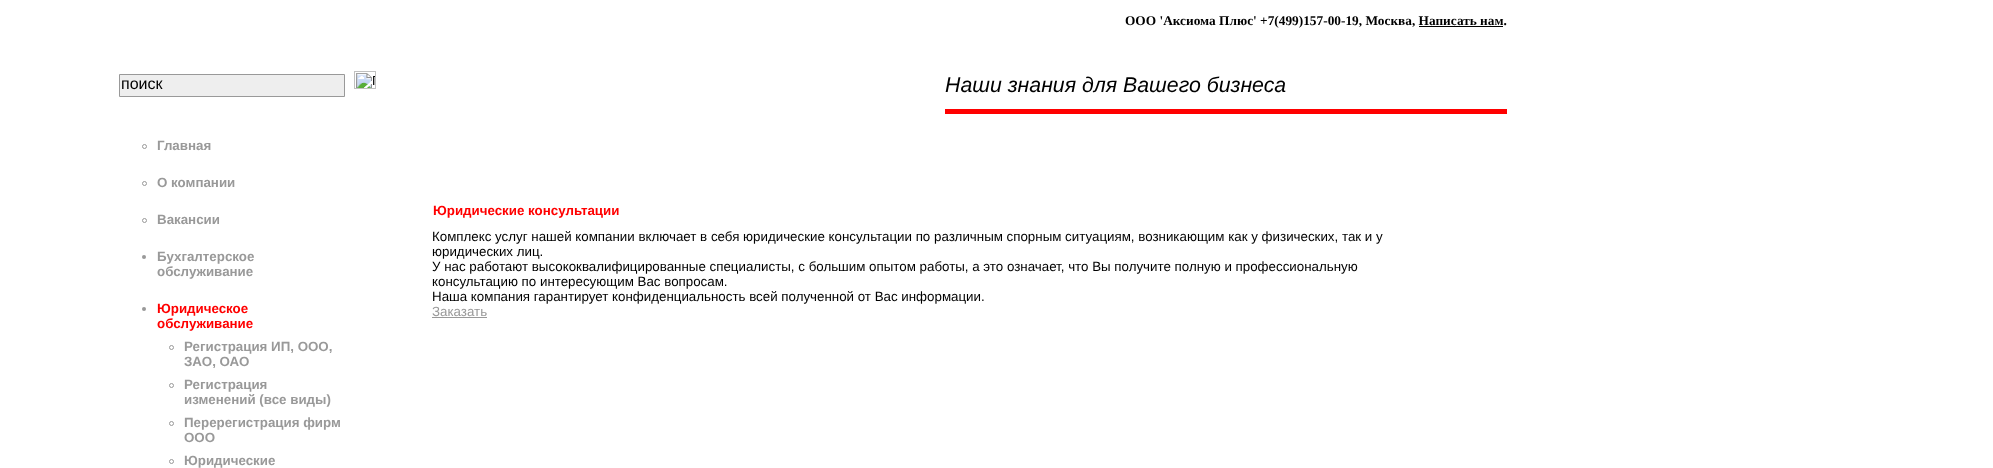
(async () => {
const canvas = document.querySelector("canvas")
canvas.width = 1993
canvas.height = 468
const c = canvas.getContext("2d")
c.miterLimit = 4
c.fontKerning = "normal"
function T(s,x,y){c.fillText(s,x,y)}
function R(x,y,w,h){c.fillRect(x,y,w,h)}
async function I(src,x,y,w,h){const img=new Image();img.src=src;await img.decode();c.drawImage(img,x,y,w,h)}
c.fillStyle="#fff"
R(0,0,1993,468)
c.font="bold 13.33px Liberation Serif"
c.fillStyle="#000"
T("ООО 'Аксиома Плюс' +7(499)157-00-19, Москва, Написать нам.",1125,25)
R(1419,26,84,1)
c.fillStyle="#eee"
c.beginPath()
c.rect(119.5,74.5,225,22)
c.fill()
c.strokeStyle="#999"
c.stroke()
c.font="16px Liberation Sans"
c.fillStyle="#000"
T("поиск",121,89)
await I("1.png",354,71,22,18)
c.beginPath()
c.arc(144.5,146.5,2,0,7)
c.stroke()
c.font="bold 13.33px Liberation Sans"
c.fillStyle="#999"
T("Главная",157,150)
c.beginPath()
c.arc(144.5,183.5,2,0,7)
c.stroke()
T("О компании",157,187)
c.beginPath()
c.arc(144.5,220.5,2,0,7)
c.stroke()
T("Вакансии",157,224)
c.beginPath()
c.arc(144,257,2,0,7)
c.fill()
T("Бухгалтерское",157,261)
T("обслуживание",157,276)
c.beginPath()
c.arc(144,309,2,0,7)
c.fill()
c.fillStyle="#f00"
T("Юридическое",157,313)
T("обслуживание",157,328)
c.beginPath()
c.arc(171.5,347.5,2,0,7)
c.stroke()
c.fillStyle="#999"
T("Регистрация ИП, ООО,",184,351)
T("ЗАО, ОАО",184,366)
c.beginPath()
c.arc(171.5,385.5,2,0,7)
c.stroke()
T("Регистрация",184,389)
T("изменений (все виды)",184,404)
c.beginPath()
c.arc(171.5,423.5,2,0,7)
c.stroke()
T("Перерегистрация фирм",184,427)
T("ООО",184,442)
c.beginPath()
c.arc(171.5,461.5,2,0,7)
c.stroke()
T("Юридические",184,465)
c.font="italic 21.3px Liberation Sans"
c.fillStyle="#000"
T("Наши знания для Вашего бизнеса",945,92)
c.fillStyle="#f00"
R(945,109,562,5)
c.font="bold 13.33px Liberation Sans"
T("Юридические консультации",433,215)
c.font="13.33px Liberation Sans"
c.fillStyle="#000"
T("Комплекс услуг нашей компании включает в себя юридические консультации по различным спорным ситуациям, возникающим как у физических, так и у",432,241)
T("юридических лиц.",432,256)
T("У нас работают высококвалифицированные специалисты, с большим опытом работы, а это означает, что Вы получите полную и профессиональную",432,271)
T("консультацию по интересующим Вас вопросам.",432,286)
T("Наша компания гарантирует конфиденциальность всей полученной от Вас информации.",432,301)
c.fillStyle="#999"
T("Заказать",432,316)
R(432,317,55,1)
})()
